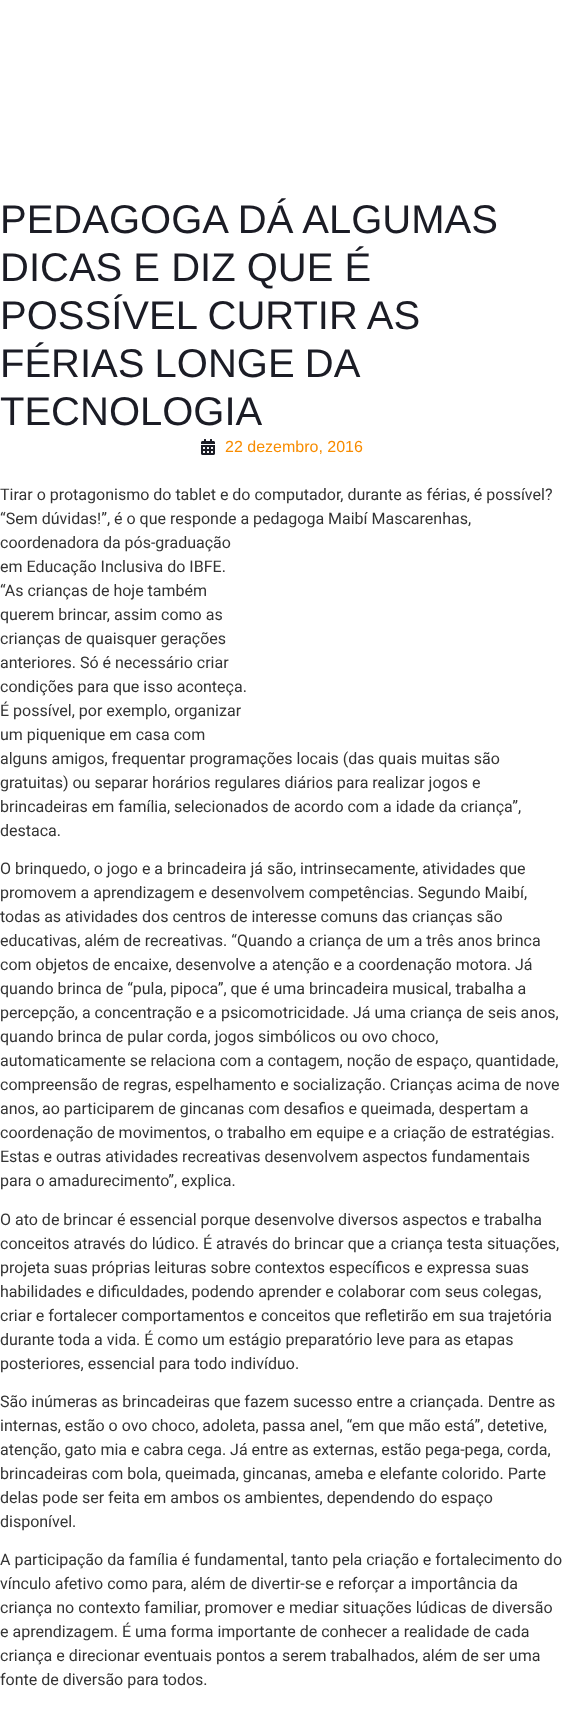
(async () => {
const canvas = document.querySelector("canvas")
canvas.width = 563
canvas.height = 1733
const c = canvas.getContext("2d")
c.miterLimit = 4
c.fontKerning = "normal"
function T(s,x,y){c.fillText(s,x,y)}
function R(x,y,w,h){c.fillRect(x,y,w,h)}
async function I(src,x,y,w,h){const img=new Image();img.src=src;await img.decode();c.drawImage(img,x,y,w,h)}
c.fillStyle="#fff"
R(0,0,563,1733)
c.font="40px Liberation Sans"
c.fillStyle="#1b1c25"
T("PEDAGOGA DÁ ALGUMAS",0,233)
T("DICAS E DIZ QUE É",0,281)
T("POSSÍVEL CURTIR AS",0,329)
c.wordSpacing="-1px"
T("FÉRIAS LONGE DA",0,377)
c.wordSpacing="0px"
T("TECNOLOGIA",0,425)
await I("1.png",201,439,14,16)
c.font="16px Liberation Sans"
c.fillStyle="#f88c00"
T("22 dezembro, 2016",225,452)
c.font="16px Roboto"
c.fillStyle="#333"
T("Tirar o protagonismo do tablet e do computador, durante as férias, é possível?",0,500)
T("“Sem dúvidas!”, é o que responde a pedagoga Maibí Mascarenhas,",0,524)
T("coordenadora da pós-graduação",0,548)
T("em Educação Inclusiva do IBFE.",0,572)
T("“As crianças de hoje também",0,596)
T("querem brincar, assim como as",0,620)
T("crianças de quaisquer gerações",0,644)
T("anteriores. Só é necessário criar",0,668)
T("condições para que isso aconteça.",0,692)
T("É possível, por exemplo, organizar",0,716)
T("um piquenique em casa com",0,740)
T("alguns amigos, frequentar programações locais (das quais muitas são",0,764)
T("gratuitas) ou separar horários regulares diários para realizar jogos e",0,788)
T("brincadeiras em família, selecionados de acordo com a idade da criança”,",0,812)
T("destaca.",0,836)
T("O brinquedo, o jogo e a brincadeira já são, intrinsecamente, atividades que",0,874)
T("promovem a aprendizagem e desenvolvem competências. Segundo Maibí,",0,898)
T("todas as atividades dos centros de interesse comuns das crianças são",0,922)
T("educativas, além de recreativas. “Quando a criança de um a três anos brinca",0,946)
T("com objetos de encaixe, desenvolve a atenção e a coordenação motora. Já",0,970)
T("quando brinca de “pula, pipoca”, que é uma brincadeira musical, trabalha a",0,994)
T("percepção, a concentração e a psicomotricidade. Já uma criança de seis anos,",0,1018)
T("quando brinca de pular corda, jogos simbólicos ou ovo choco,",0,1042)
T("automaticamente se relaciona com a contagem, noção de espaço, quantidade,",0,1066)
T("compreensão de regras, espelhamento e socialização. Crianças acima de nove",0,1090)
T("anos, ao participarem de gincanas com desafios e queimada, despertam a",0,1114)
T("coordenação de movimentos, o trabalho em equipe e a criação de estratégias.",0,1138)
T("Estas e outras atividades recreativas desenvolvem aspectos fundamentais",0,1162)
T("para o amadurecimento”, explica.",0,1186)
T("O ato de brincar é essencial porque desenvolve diversos aspectos e trabalha",0,1225)
T("conceitos através do lúdico. É através do brincar que a criança testa situações,",0,1249)
T("projeta suas próprias leituras sobre contextos específicos e expressa suas",0,1273)
T("habilidades e dificuldades, podendo aprender e colaborar com seus colegas,",0,1297)
T("criar e fortalecer comportamentos e conceitos que refletirão em sua trajetória",0,1321)
T("durante toda a vida. É como um estágio preparatório leve para as etapas",0,1345)
T("posteriores, essencial para todo indivíduo.",0,1369)
T("São inúmeras as brincadeiras que fazem sucesso entre a criançada. Dentre as",0,1407)
T("internas, estão o ovo choco, adoleta, passa anel, “em que mão está”, detetive,",0,1431)
T("atenção, gato mia e cabra cega. Já entre as externas, estão pega-pega, corda,",0,1455)
T("brincadeiras com bola, queimada, gincanas, ameba e elefante colorido. Parte",0,1479)
T("delas pode ser feita em ambos os ambientes, dependendo do espaço",0,1503)
T("disponível.",0,1527)
T("A participação da família é fundamental, tanto pela criação e fortalecimento do",0,1565)
T("vínculo afetivo como para, além de divertir-se e reforçar a importância da",0,1589)
T("criança no contexto familiar, promover e mediar situações lúdicas de diversão",0,1613)
T("e aprendizagem. É uma forma importante de conhecer a realidade de cada",0,1637)
T("criança e direcionar eventuais pontos a serem trabalhados, além de ser uma",0,1661)
T("fonte de diversão para todos.",0,1685)
})()
